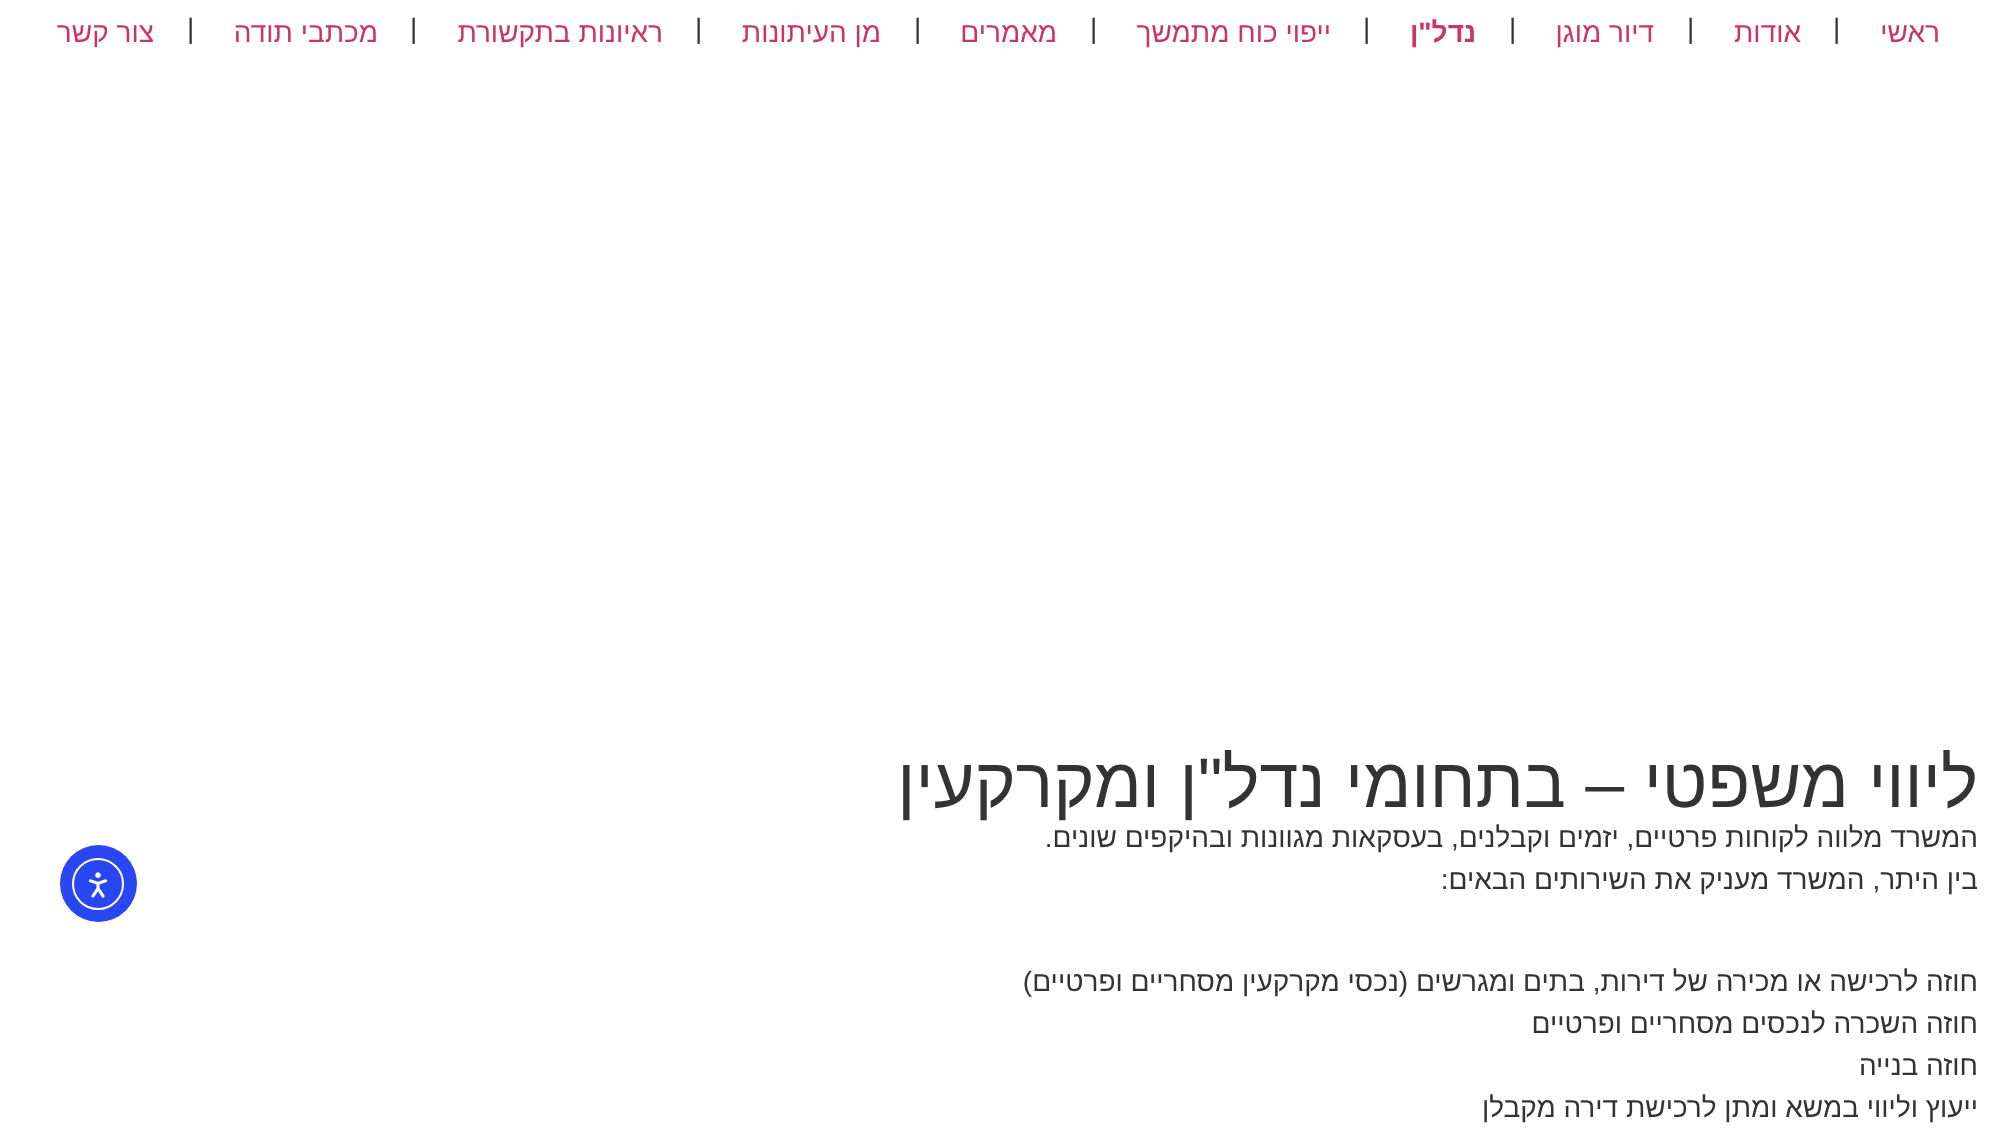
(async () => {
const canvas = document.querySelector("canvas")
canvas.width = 1996
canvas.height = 1139
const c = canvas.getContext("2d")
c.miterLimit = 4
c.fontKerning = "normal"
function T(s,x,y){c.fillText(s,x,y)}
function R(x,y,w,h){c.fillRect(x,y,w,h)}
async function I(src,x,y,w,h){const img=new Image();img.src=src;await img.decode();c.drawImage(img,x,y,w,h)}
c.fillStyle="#fff"
R(0,0,1996,1139)
c.direction="rtl"
c.font="28px Liberation Sans"
c.fillStyle="#c36"
T("ראשי",1940,42)
c.direction="ltr"
c.fillStyle="#333"
T("|",1833,38)
c.direction="rtl"
c.fillStyle="#c36"
T("אודות",1801,42)
c.direction="ltr"
c.fillStyle="#333"
T("|",1687,38)
c.direction="rtl"
c.fillStyle="#c36"
T("דיור מוגן",1654,42)
c.direction="ltr"
c.fillStyle="#333"
T("|",1509,38)
c.direction="rtl"
c.font="bold 28px Liberation Sans"
c.fillStyle="#c36"
T("נדל\"ן",1476,42)
c.direction="ltr"
c.font="28px Liberation Sans"
c.fillStyle="#333"
T("|",1363,38)
c.direction="rtl"
c.fillStyle="#c36"
T("ייפוי כוח מתמשך",1331,42)
c.direction="ltr"
c.fillStyle="#333"
T("|",1090,38)
c.direction="rtl"
c.fillStyle="#c36"
T("מאמרים",1057,42)
c.direction="ltr"
c.fillStyle="#333"
T("|",914,38)
c.direction="rtl"
c.fillStyle="#c36"
T("מן העיתונות",881,42)
c.direction="ltr"
c.fillStyle="#333"
T("|",695,38)
c.direction="rtl"
c.fillStyle="#c36"
T("ראיונות בתקשורת",663,42)
c.direction="ltr"
c.fillStyle="#333"
T("|",410,38)
c.direction="rtl"
c.fillStyle="#c36"
T("מכתבי תודה",378,42)
c.direction="ltr"
c.fillStyle="#333"
T("|",187,38)
c.direction="rtl"
c.fillStyle="#c36"
T("צור קשר",154,42)
c.font="70px Liberation Sans"
c.fillStyle="#333"
T("ליווי משפטי – בתחומי נדל\"ן ומקרקעין",1978,807)
c.font="28px Liberation Sans"
T("המשרד מלווה לקוחות פרטיים, יזמים וקבלנים, בעסקאות מגוונות ובהיקפים שונים.",1978,847)
T("בין היתר, המשרד מעניק את השירותים הבאים:",1978,889)
T("חוזה לרכישה או מכירה של דירות, בתים ומגרשים (נכסי מקרקעין מסחריים ופרטיים)",1978,991)
T("חוזה השכרה לנכסים מסחריים ופרטיים",1978,1033)
T("חוזה בנייה",1978,1075)
T("ייעוץ וליווי במשא ומתן לרכישת דירה מקבלן",1978,1117)
c.fillStyle="#2847f3"
c.beginPath()
c.arc(98.5,883.5,38.5,0,7)
c.fill()
c.beginPath()
c.arc(98,884,25,0,7)
c.strokeStyle="#fff"
c.lineWidth=2
c.stroke()
await I("1.png",88,872,20,26)
})()
